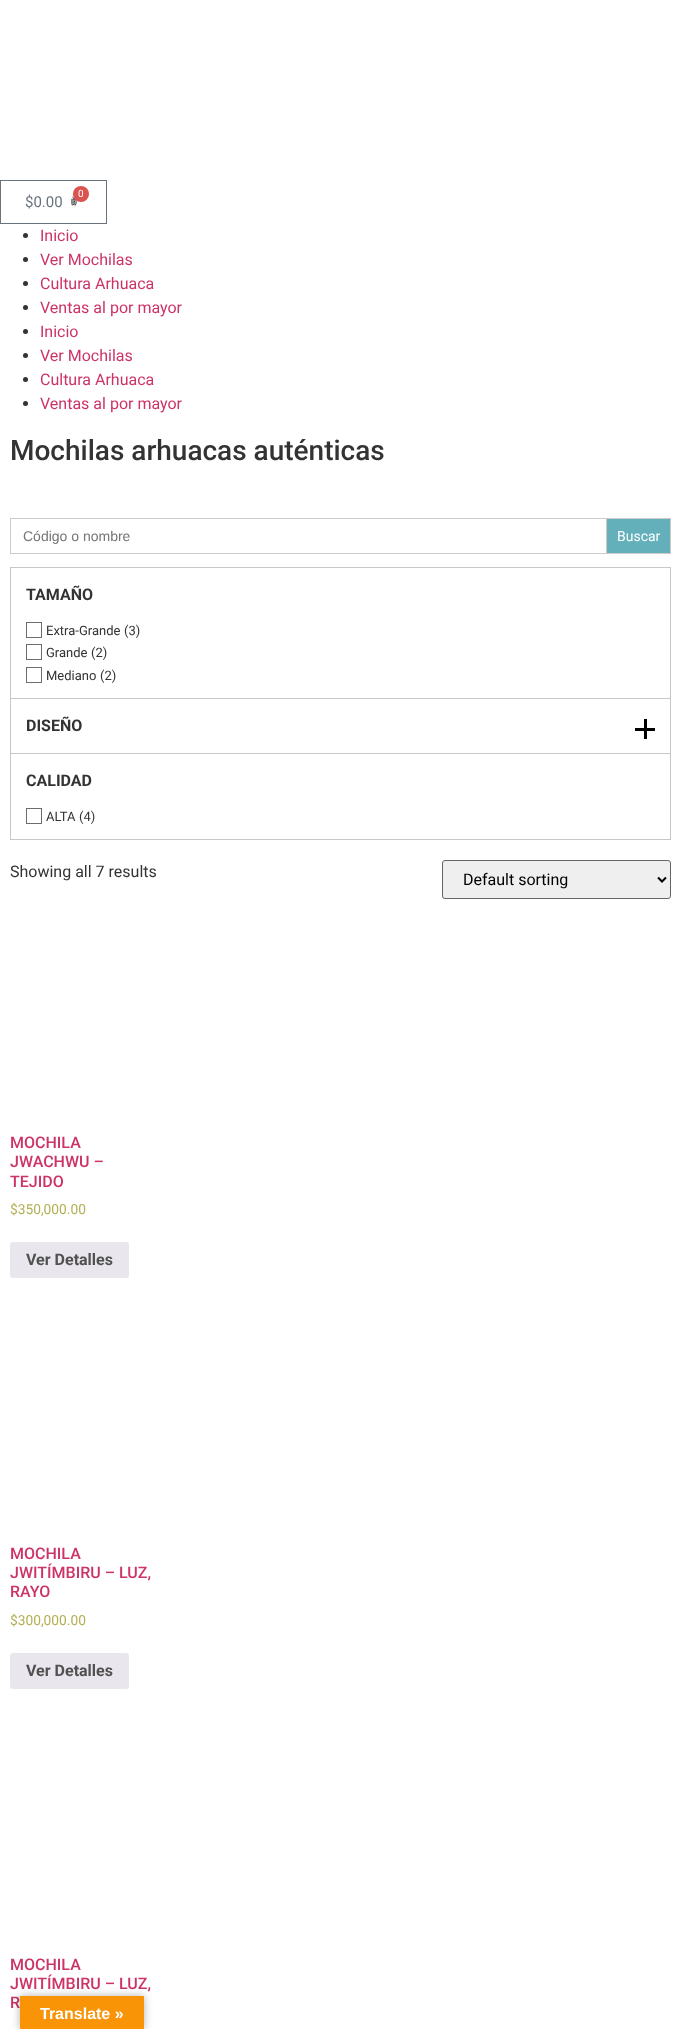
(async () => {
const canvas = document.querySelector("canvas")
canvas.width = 681
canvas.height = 2029
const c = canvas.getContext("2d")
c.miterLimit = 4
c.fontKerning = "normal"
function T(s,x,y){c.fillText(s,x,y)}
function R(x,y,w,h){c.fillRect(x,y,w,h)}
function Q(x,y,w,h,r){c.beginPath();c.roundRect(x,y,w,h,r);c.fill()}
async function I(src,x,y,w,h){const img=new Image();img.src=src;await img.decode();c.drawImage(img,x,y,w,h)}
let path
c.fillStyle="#fff"
R(0,0,681,2029)
c.strokeStyle="#69727d"
c.strokeRect(.5,180.5,106,43)
c.font="15px Roboto"
c.fillStyle="#69727d"
T("$0.00",25,207)
await I("1.png",71,194,6,13)
c.fillStyle="#d9534f"
c.beginPath()
c.arc(81,194,8,0,7)
c.fill()
c.font="10px Roboto"
c.fillStyle="#fff"
T("0",78,197)
c.fillStyle="#333"
c.beginPath()
c.arc(25.5,235.5,2.5,0,7)
c.fill()
c.font="16px Roboto"
c.fillStyle="#c36"
T("Inicio",40,241)
c.fillStyle="#333"
c.beginPath()
c.arc(25.5,259.5,2.5,0,7)
c.fill()
c.fillStyle="#c36"
T("Ver Mochilas",40,265)
c.fillStyle="#333"
c.beginPath()
c.arc(25.5,283.5,2.5,0,7)
c.fill()
c.fillStyle="#c36"
T("Cultura Arhuaca",40,289)
c.fillStyle="#333"
c.beginPath()
c.arc(25.5,307.5,2.5,0,7)
c.fill()
c.fillStyle="#c36"
T("Ventas al por mayor",40,313)
c.fillStyle="#333"
c.beginPath()
c.arc(25.5,331.5,2.5,0,7)
c.fill()
c.fillStyle="#c36"
T("Inicio",40,337)
c.fillStyle="#333"
c.beginPath()
c.arc(25.5,355.5,2.5,0,7)
c.fill()
c.fillStyle="#c36"
T("Ver Mochilas",40,361)
c.fillStyle="#333"
c.beginPath()
c.arc(25.5,379.5,2.5,0,7)
c.fill()
c.fillStyle="#c36"
T("Cultura Arhuaca",40,385)
c.fillStyle="#333"
c.beginPath()
c.arc(25.5,403.5,2.5,0,7)
c.fill()
c.fillStyle="#c36"
T("Ventas al por mayor",40,409)
c.font="500 28px Roboto"
c.fillStyle="#333"
T("Mochilas arhuacas auténticas",10,460)
c.strokeStyle="#ccc"
c.strokeRect(10.5,518.5,660,35)
c.font="14px Liberation Sans"
c.fillStyle="#757575"
T("Código o nombre",23,541)
c.fillStyle="#63b0bb"
c.beginPath()
c.rect(606.5,518.5,64,35)
c.fill()
c.stroke()
c.font="14px Roboto"
c.fillStyle="#fff"
T("Buscar",617,541)
c.strokeStyle="#c7c7c7"
c.strokeRect(10.5,567.5,660,131)
c.font="bold 16px Roboto"
c.fillStyle="#333"
T("TAMAÑO",26,600)
c.strokeStyle="#6d6d6d"
c.strokeRect(26.5,622.5,15,15)
c.font="13px Roboto"
T("Extra-Grande",46,635)
T("(3)",124,635)
c.strokeRect(26.5,644.5,15,15)
T("Grande",46,657)
T("(2)",91,657)
c.strokeRect(26.5,667.5,15,15)
T("Mediano",46,680)
T("(2)",100,680)
c.strokeStyle="#c7c7c7"
c.strokeRect(10.5,698.5,660,55)
c.font="bold 16px Roboto"
T("DISEÑO",26,731)
c.fillStyle="#000"
R(635,728,20,3)
R(644,719,3,20)
c.strokeRect(10.5,753.5,660,86)
c.fillStyle="#333"
T("CALIDAD",26,786)
c.strokeStyle="#6d6d6d"
c.strokeRect(26.5,808.5,15,15)
c.font="13px Roboto"
T("ALTA",46,821)
T("(4)",79,821)
c.font="16px Roboto"
T("Showing all 7 results",10,877)
c.fillStyle="#efefef"
c.beginPath()
c.roundRect(442.5,860.5,228,38,2.5)
c.fill()
c.strokeStyle="#666"
c.stroke()
path = new Path2D("M658 877.5l4 4l4-4")
c.strokeStyle="#000"
c.lineWidth=2
c.stroke(path)
c.fillStyle="#000"
T("Default sorting",463,885)
c.font="500 16px Roboto"
c.fillStyle="#c36"
T("MOCHILA",10,1148)
T("JWACHWU –",10,1167)
T("TEJIDO",10,1187)
c.font="13.75px Roboto"
c.fillStyle="#b3af54"
T("$350,000.00",10,1214)
c.fillStyle="#e9e6ed"
Q(10,1242,119,36,3)
c.font="bold 16px Roboto"
c.fillStyle="#515151"
T("Ver Detalles",26,1265)
c.font="500 16px Roboto"
c.fillStyle="#c36"
T("MOCHILA",10,1559)
T("JWITÍMBIRU – LUZ,",10,1578)
T("RAYO",10,1597)
c.font="13.75px Roboto"
c.fillStyle="#b3af54"
T("$300,000.00",10,1625)
c.fillStyle="#e9e6ed"
Q(10,1653,119,36,3)
c.font="bold 16px Roboto"
c.fillStyle="#515151"
T("Ver Detalles",26,1676)
c.font="500 16px Roboto"
c.fillStyle="#c36"
T("MOCHILA",10,1970)
T("JWITÍMBIRU – LUZ,",10,1989)
T("R",10,2008)
c.fillStyle="#0000004d"
c.filter="blur(4.5px)"
c.beginPath()
c.rect(20,1996,124,33)
c.fill()
c.filter="none"
c.fillStyle="#f89406"
R(20,1996,124,33)
c.font="bold 16px Liberation Sans"
c.fillStyle="#fff"
T("Translate »",40,2019)
})()
